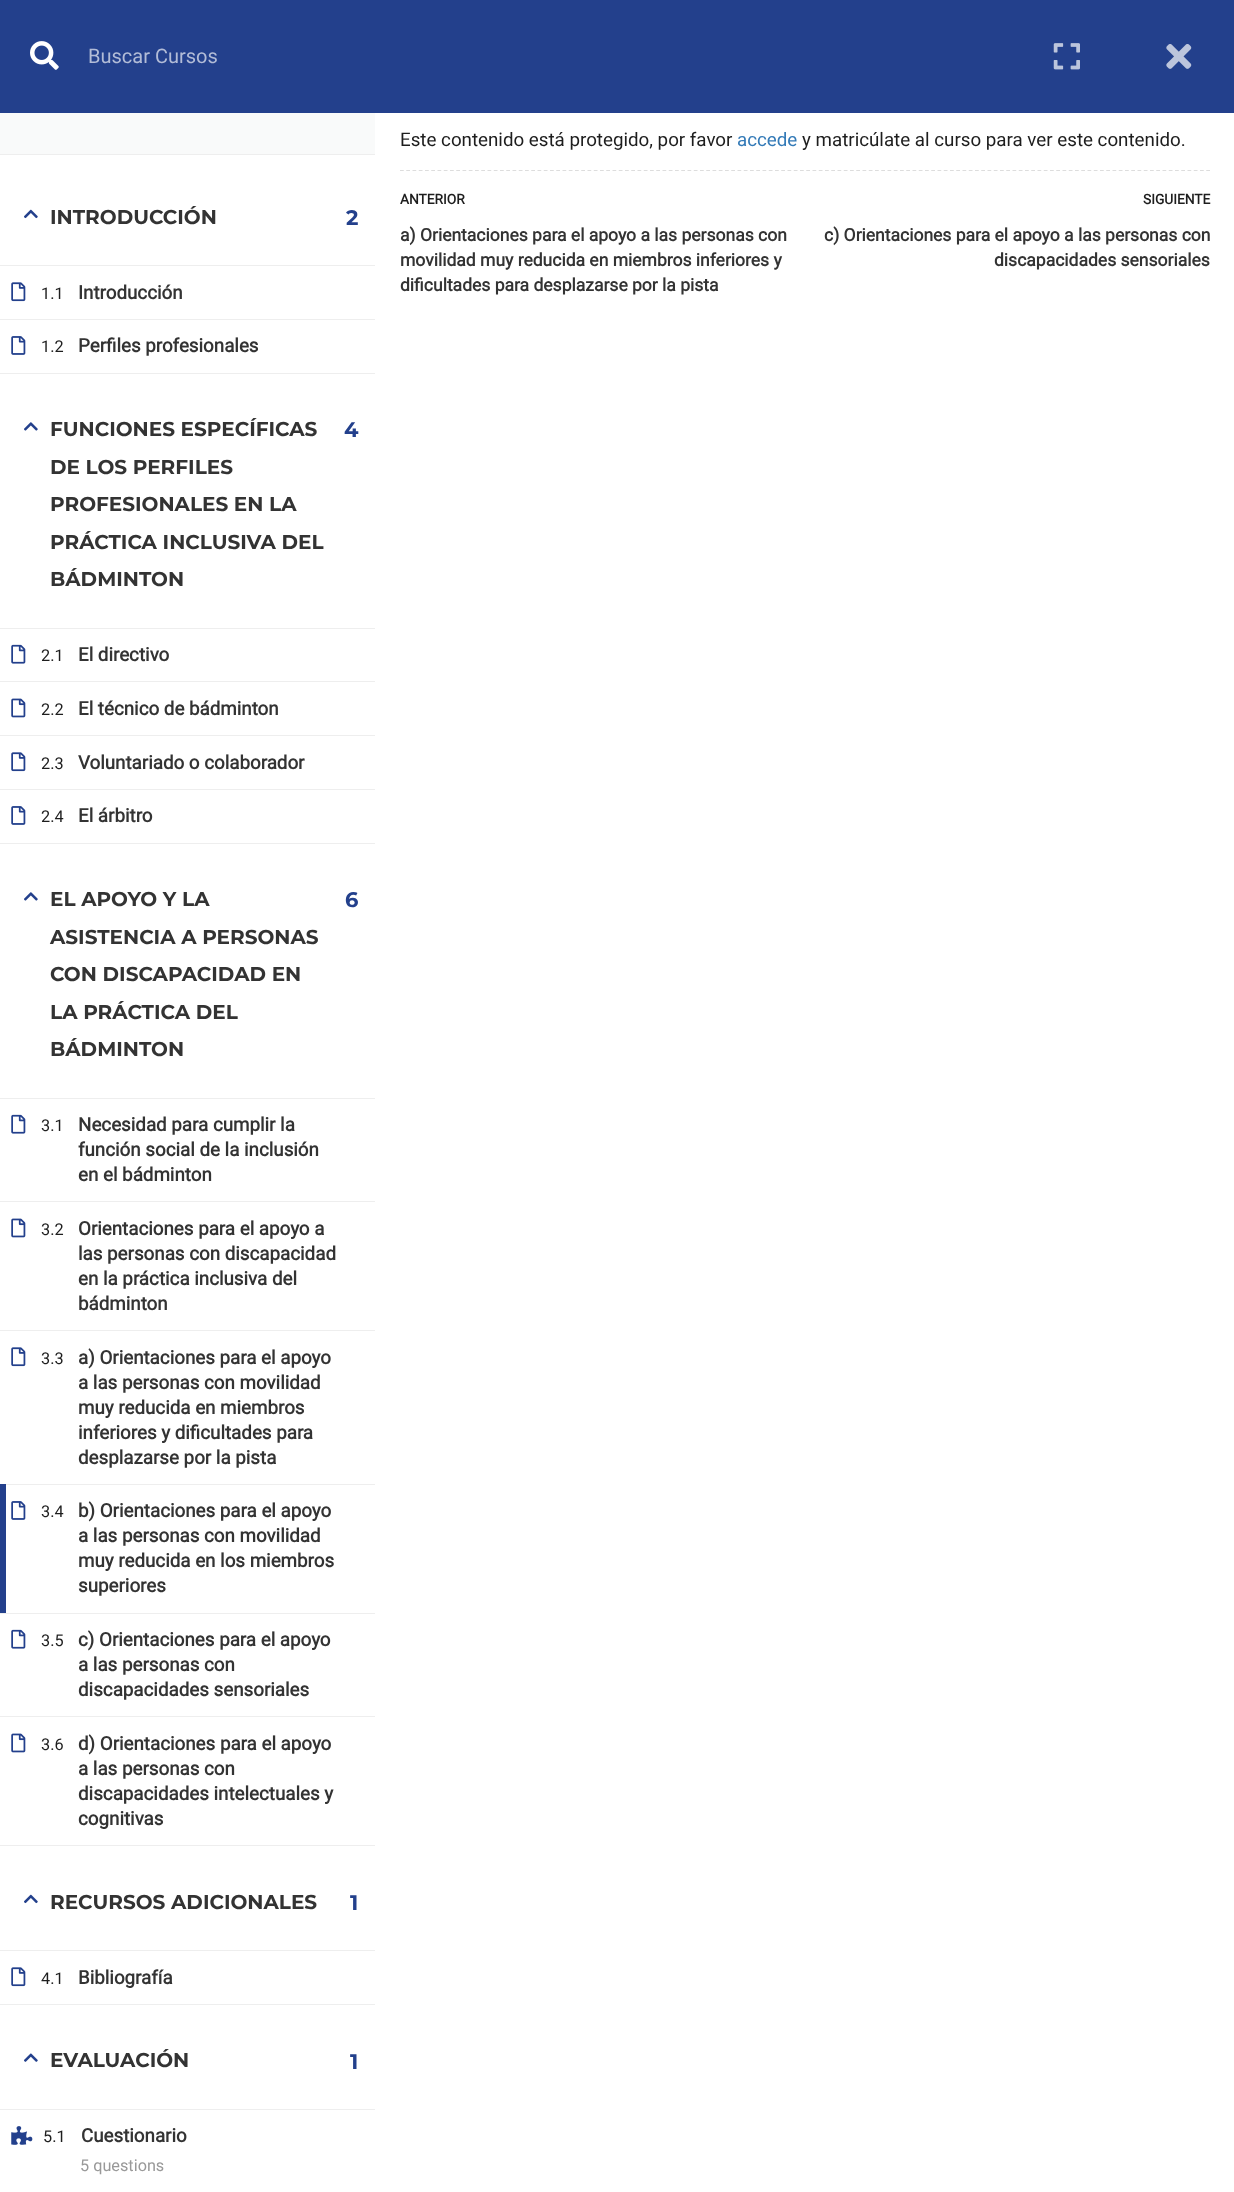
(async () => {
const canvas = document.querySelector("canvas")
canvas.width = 1234
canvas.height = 2192
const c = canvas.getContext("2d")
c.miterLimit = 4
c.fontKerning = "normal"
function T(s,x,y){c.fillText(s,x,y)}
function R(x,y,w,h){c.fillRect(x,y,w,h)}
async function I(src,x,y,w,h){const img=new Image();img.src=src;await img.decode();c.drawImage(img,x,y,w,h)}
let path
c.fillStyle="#fff"
R(0,0,1234,2192)
c.fillStyle="#23408c"
R(0,0,1234,113)
await I("1.png",30,41,29,29)
c.font="20px Roboto"
c.fillStyle="#b2bcd7"
T("Buscar Cursos",88,63)
await I("2.png",1053,43,27,27)
await I("3.png",1166,44,26,25)
c.font="18.75px Roboto"
c.fillStyle="#1e1e1e"
T("Este contenido está protegido, por favor",400,146)
c.fillStyle="#337ab7"
T("accede",737,146)
c.fillStyle="#1e1e1e"
T("y matricúlate al curso para ver este contenido.",802,146)
path = new Path2D("M400 170.5h810")
c.strokeStyle="#ddd"
c.lineWidth=1.2
c.setLineDash([3.75,2.5])
c.stroke(path)
c.font="bold 13.75px Roboto"
T("ANTERIOR",400,204)
c.font="bold 17.5px Roboto"
c.fillStyle="#333"
T("a) Orientaciones para el apoyo a las personas con",400,241)
T("movilidad muy reducida en miembros inferiores y",400,266)
T("dificultades para desplazarse por la pista",400,291)
c.font="bold 13.75px Roboto"
c.fillStyle="#1e1e1e"
T("SIGUIENTE",1143,204)
c.font="bold 17.5px Roboto"
c.fillStyle="#333"
T("c) Orientaciones para el apoyo a las personas con",824,241)
T("discapacidades sensoriales",994,266)
c.fillStyle="#f9fafa"
R(0,113,375,41)
c.fillStyle="#eee"
R(0,154,375,1)
R(0,373,375,1)
await I("4.png",24,209,14,10)
c.font="bold 20px Montserrat"
c.fillStyle="#333"
T("INTRODUCCIÓN",50,224)
c.font="bold 21px Montserrat"
c.fillStyle="#23408c"
T("2",346,225)
c.fillStyle="#eee"
R(0,265,375,1)
await I("5.png",11,282,15,20)
c.font="16.25px Roboto"
c.fillStyle="#1e1e1e"
T("1.1",41,299)
c.font="bold 18.75px Roboto"
c.fillStyle="#333"
T("Introducción",78,299)
c.fillStyle="#eee"
R(0,319,375,1)
await I("6.png",11,336,15,19)
c.font="16.25px Roboto"
c.fillStyle="#1e1e1e"
T("1.2",41,352)
c.font="bold 18.75px Roboto"
c.fillStyle="#333"
T("Perfiles profesionales",78,352)
c.fillStyle="#eee"
R(0,843,375,1)
await I("7.png",24,422,14,9)
c.font="bold 20px Montserrat"
c.fillStyle="#333"
T("FUNCIONES ESPECÍFICAS",50,436)
c.font="bold 21px Montserrat"
c.fillStyle="#23408c"
T("4",344,437)
c.font="bold 20px Montserrat"
c.fillStyle="#333"
T("DE LOS PERFILES",50,474)
T("PROFESIONALES EN LA",50,511)
T("PRÁCTICA INCLUSIVA DEL",50,549)
T("BÁDMINTON",50,586)
c.fillStyle="#eee"
R(0,628,375,1)
await I("8.png",11,644,15,20)
c.font="16.25px Roboto"
c.fillStyle="#1e1e1e"
T("2.1",41,661)
c.font="bold 18.75px Roboto"
c.fillStyle="#333"
T("El directivo",78,661)
c.fillStyle="#eee"
R(0,681,375,1)
await I("9.png",11,698,15,20)
c.font="16.25px Roboto"
c.fillStyle="#1e1e1e"
T("2.2",41,715)
c.font="bold 18.75px Roboto"
c.fillStyle="#333"
T("El técnico de bádminton",78,715)
c.fillStyle="#eee"
R(0,735,375,1)
await I("5.png",11,752,15,20)
c.font="16.25px Roboto"
c.fillStyle="#1e1e1e"
T("2.3",41,769)
c.font="bold 18.75px Roboto"
c.fillStyle="#333"
T("Voluntariado o colaborador",78,769)
c.fillStyle="#eee"
R(0,789,375,1)
await I("6.png",11,806,15,19)
c.font="16.25px Roboto"
c.fillStyle="#1e1e1e"
T("2.4",41,822)
c.font="bold 18.75px Roboto"
c.fillStyle="#333"
T("El árbitro",78,822)
c.fillStyle="#eee"
R(0,1845,375,1)
await I("7.png",24,892,14,9)
c.font="bold 20px Montserrat"
c.fillStyle="#333"
T("EL APOYO Y LA",50,906)
c.font="bold 21px Montserrat"
c.fillStyle="#23408c"
T("6",345,907)
c.font="bold 20px Montserrat"
c.fillStyle="#333"
T("ASISTENCIA A PERSONAS",50,944)
T("CON DISCAPACIDAD EN",50,981)
T("LA PRÁCTICA DEL",50,1019)
T("BÁDMINTON",50,1056)
c.fillStyle="#eee"
R(0,1098,375,1)
await I("8.png",11,1114,15,20)
c.font="16.25px Roboto"
c.fillStyle="#1e1e1e"
T("3.1",41,1131)
c.font="bold 18.75px Roboto"
c.fillStyle="#333"
T("Necesidad para cumplir la",78,1131)
T("función social de la inclusión",78,1156)
T("en el bádminton",78,1181)
c.fillStyle="#eee"
R(0,1201,375,1)
await I("9.png",11,1218,15,20)
c.font="16.25px Roboto"
c.fillStyle="#1e1e1e"
T("3.2",41,1235)
c.font="bold 18.75px Roboto"
c.fillStyle="#333"
T("Orientaciones para el apoyo a",78,1235)
T("las personas con discapacidad",78,1260)
T("en la práctica inclusiva del",78,1285)
T("bádminton",78,1310)
c.fillStyle="#eee"
R(0,1330,375,1)
await I("5.png",11,1347,15,20)
c.font="16.25px Roboto"
c.fillStyle="#1e1e1e"
T("3.3",41,1364)
c.font="bold 18.75px Roboto"
c.fillStyle="#333"
T("a) Orientaciones para el apoyo",78,1364)
T("a las personas con movilidad",78,1389)
T("muy reducida en miembros",78,1414)
T("inferiores y dificultades para",78,1439)
T("desplazarse por la pista",78,1464)
c.fillStyle="#eee"
R(0,1484,375,1)
c.fillStyle="#23408c"
R(0,1484,6,129)
await I("6.png",11,1501,15,19)
c.font="16.25px Roboto"
c.fillStyle="#1e1e1e"
T("3.4",41,1517)
c.font="bold 18.75px Roboto"
c.fillStyle="#333"
T("b) Orientaciones para el apoyo",78,1517)
T("a las personas con movilidad",78,1542)
T("muy reducida en los miembros",78,1567)
T("superiores",78,1592)
c.fillStyle="#eee"
R(0,1613,375,1)
await I("8.png",11,1629,15,20)
c.font="16.25px Roboto"
c.fillStyle="#1e1e1e"
T("3.5",41,1646)
c.font="bold 18.75px Roboto"
c.fillStyle="#333"
T("c) Orientaciones para el apoyo",78,1646)
T("a las personas con",78,1671)
T("discapacidades sensoriales",78,1696)
c.fillStyle="#eee"
R(0,1716,375,1)
await I("9.png",11,1733,15,20)
c.font="16.25px Roboto"
c.fillStyle="#1e1e1e"
T("3.6",41,1750)
c.font="bold 18.75px Roboto"
c.fillStyle="#333"
T("d) Orientaciones para el apoyo",78,1750)
T("a las personas con",78,1775)
T("discapacidades intelectuales y",78,1800)
T("cognitivas",78,1825)
c.fillStyle="#eee"
R(0,2004,375,1)
await I("4.png",24,1894,14,10)
c.font="bold 20px Montserrat"
c.fillStyle="#333"
T("RECURSOS ADICIONALES",50,1909)
c.font="bold 21px Montserrat"
c.fillStyle="#23408c"
T("1",350,1910)
c.fillStyle="#eee"
R(0,1950,375,1)
await I("5.png",11,1967,15,20)
c.font="16.25px Roboto"
c.fillStyle="#1e1e1e"
T("4.1",41,1984)
c.font="bold 18.75px Roboto"
c.fillStyle="#333"
T("Bibliografía",78,1984)
await I("10.png",24,2053,14,9)
c.font="bold 20px Montserrat"
T("EVALUACIÓN",50,2067)
c.font="bold 21px Montserrat"
c.fillStyle="#23408c"
T("1",350,2069)
c.fillStyle="#eee"
R(0,2109,375,1)
await I("11.png",11,2126,22,19)
c.font="16.25px Roboto"
c.fillStyle="#1e1e1e"
T("5.1",43,2142)
c.font="bold 18.75px Roboto"
c.fillStyle="#333"
T("Cuestionario",81,2142)
c.font="16.25px Roboto"
c.fillStyle="#999"
T("5 questions",80,2171)
})()
